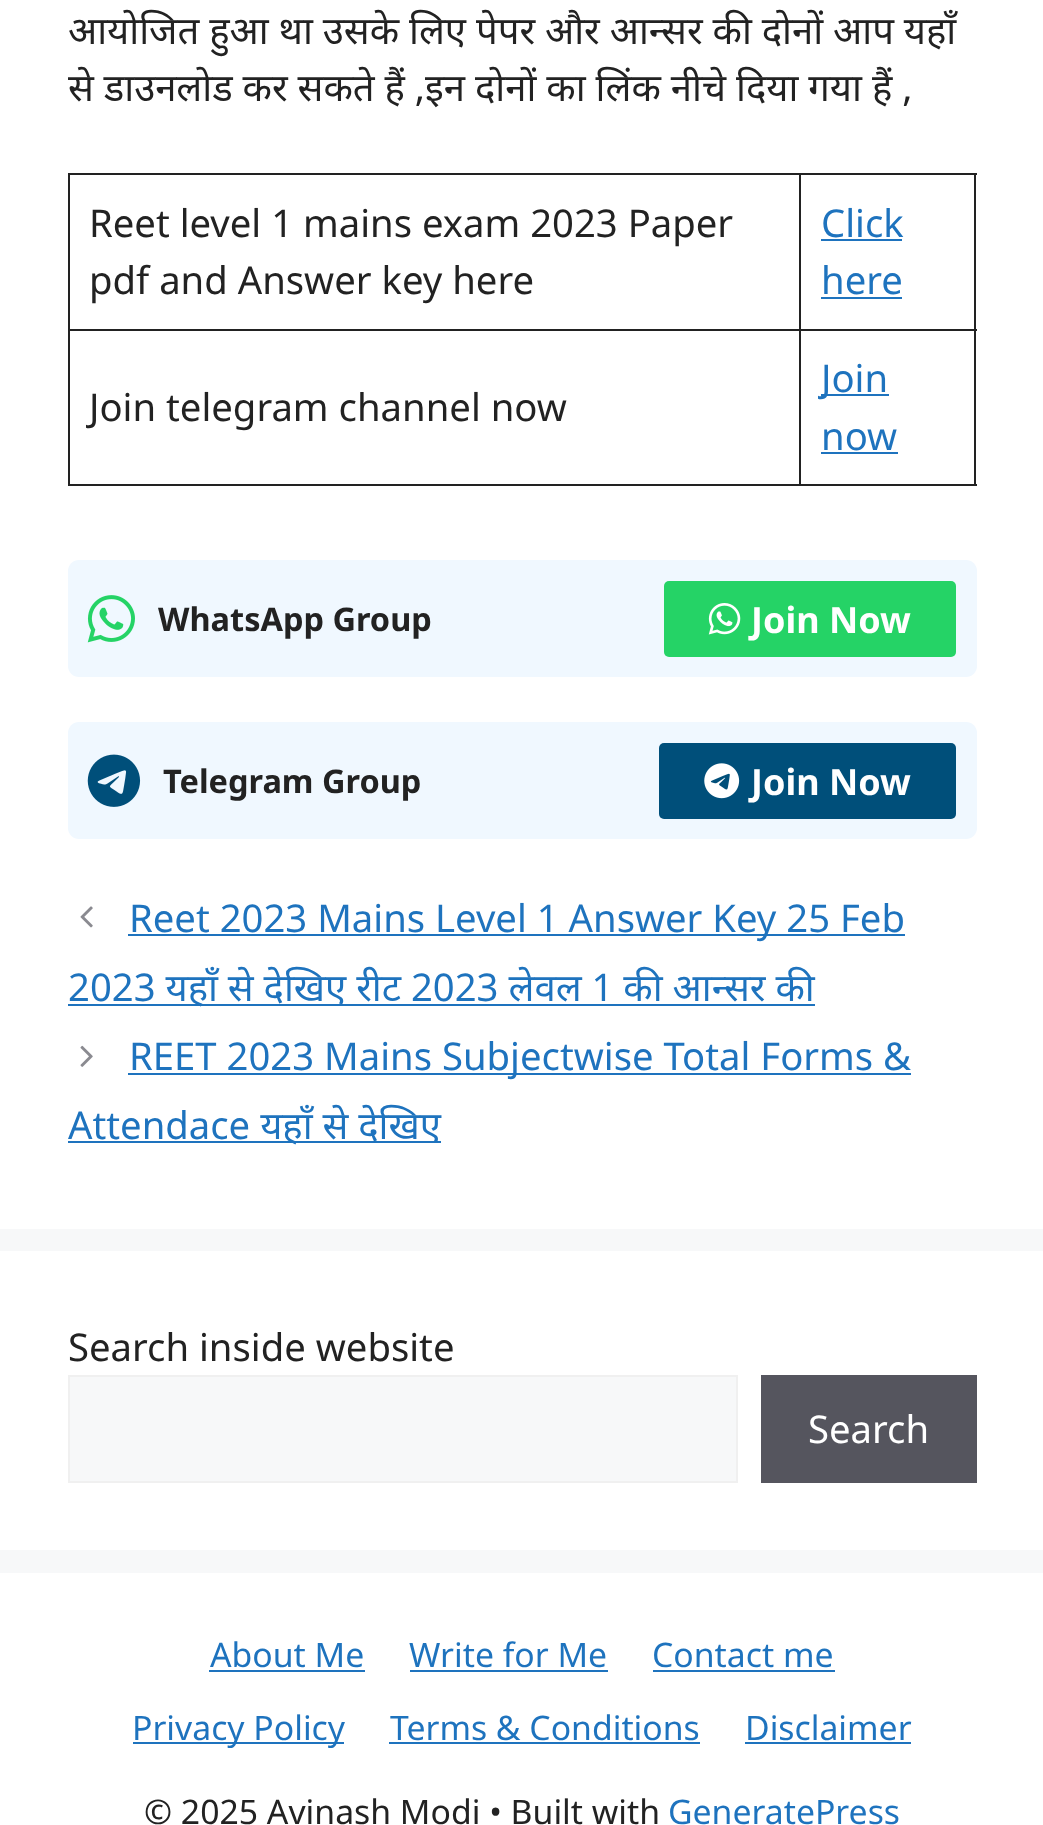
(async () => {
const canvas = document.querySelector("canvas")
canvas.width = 1043
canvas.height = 1825
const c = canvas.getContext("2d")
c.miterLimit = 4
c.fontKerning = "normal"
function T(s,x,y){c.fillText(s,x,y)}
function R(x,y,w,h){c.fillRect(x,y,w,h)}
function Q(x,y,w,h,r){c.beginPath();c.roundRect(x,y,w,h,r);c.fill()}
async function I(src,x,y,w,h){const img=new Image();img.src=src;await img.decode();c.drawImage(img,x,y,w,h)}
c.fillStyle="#f7f8f9"
R(0,0,1043,1825)
c.fillStyle="#fff"
R(0,0,1043,1229)
c.font="38.25px Noto Sans"
c.fillStyle="#222"
T("आयोजित हुआ था उसके लिए पेपर और आन्सर की दोनों आप यहाँ",68,44)
T("से डाउनलोड कर सकते हैं ,इन दोनों का लिंक नीचे दिया गया हैं ,",68,101)
R(799,173,178,2)
R(799,329,178,2)
R(974,329,2,157)
R(799,484,178,2)
R(799,329,2,157)
R(68,329,733,2)
R(799,173,2,158)
R(68,173,733,2)
R(68,484,733,2)
R(68,329,2,157)
R(68,173,2,158)
T("Reet level 1 mains exam 2023 Paper",89,237)
T("pdf and Answer key here",89,294)
R(974,173,2,158)
c.fillStyle="#1e73be"
T("Click",821,237)
R(821,239,81,2)
T("here",821,294)
R(821,297,81,2)
c.fillStyle="#222"
T("Join telegram channel now",89,421)
c.fillStyle="#1e73be"
R(821,394,68,2)
T("Join",821,392)
T("now",821,450)
R(821,452,77,2)
c.fillStyle="#f0f8ff"
Q(68,560,909,117,11)
await I("1.png",87,595,48,48)
c.font="bold 32.5px Noto Sans"
c.fillStyle="#222"
T("WhatsApp Group",158,631)
c.fillStyle="#25d366"
Q(664,581,292,76,5)
await I("2.png",708,603,33,32)
c.font="bold 36px Noto Sans"
c.fillStyle="#fff"
T("Join Now",751,633)
c.fillStyle="#f0f8ff"
Q(68,722,909,117,11)
await I("3.png",87,754,54,53)
c.font="bold 32.5px Noto Sans"
c.fillStyle="#222"
T("Telegram Group",163,793)
c.fillStyle="#004f7a"
Q(659,743,297,76,5)
await I("4.png",704,763,36,36)
c.font="bold 36px Noto Sans"
c.fillStyle="#fff"
T("Join Now",751,795)
await I("5.png",80,906,13,22)
c.fillStyle="#1e73be"
R(128,934,777,2)
c.font="38.25px Noto Sans"
T("Reet 2023 Mains Level 1 Answer Key 25 Feb",129,932)
R(68,1004,747,2)
T("2023 यहाँ से देखिए रीट 2023 लेवल 1 की आन्सर की",68,1001)
await I("6.png",80,1045,13,22)
R(128,1073,783,2)
T("REET 2023 Mains Subjectwise Total Forms &",129,1070)
R(68,1141,373,2)
T("Attendace यहाँ से देखिए",68,1139)
c.fillStyle="#fff"
R(0,1251,1043,299)
c.fillStyle="#222"
T("Search inside website",68,1361)
c.fillStyle="#f7f8f9"
c.beginPath()
c.rect(69,1376,668,106)
c.fill()
c.strokeStyle="#f0f0f0"
c.lineWidth=2
c.stroke()
c.fillStyle="#55555e"
R(761,1375,216,108)
c.fillStyle="#fff"
T("Search",808,1443)
R(0,1573,1043,252)
c.font="33.75px Noto Sans"
c.fillStyle="#1e73be"
T("About Me",210,1667)
R(209,1670,156,2)
T("Write for Me",409,1667)
R(410,1670,198,2)
T("Contact me",652,1667)
R(653,1670,182,2)
R(133,1742,211,2)
T("Privacy Policy",132,1740)
T("Terms & Conditions",390,1740)
R(389,1742,311,2)
T("Disclaimer",745,1740)
R(745,1742,166,2)
c.fillStyle="#222"
T("© 2025 Avinash Modi • Built with",144,1824)
c.fillStyle="#1e73be"
T("GeneratePress",668,1824)
})()
